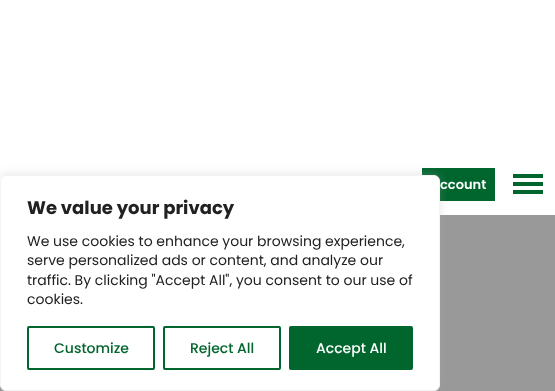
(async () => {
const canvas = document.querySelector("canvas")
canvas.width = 555
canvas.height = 391
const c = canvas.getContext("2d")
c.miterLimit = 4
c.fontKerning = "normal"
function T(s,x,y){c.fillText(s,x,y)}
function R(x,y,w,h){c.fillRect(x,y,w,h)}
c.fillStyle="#fff"
R(0,0,555,391)
c.fillStyle="#01652e"
R(422,168,73,33)
c.font="600 13px Poppins"
c.fillStyle="#fff"
T("ccount",440,189)
c.fillStyle="#01652e"
R(513,174,30,4)
R(513,182,30,4)
R(513,190,30,4)
c.fillStyle="#999"
R(0,215,555,176)
c.fillStyle="#acabab4d"
c.filter="blur(5px)"
c.beginPath()
c.roundRect(0,174,440,216,6)
c.fill()
c.filter="none"
c.fillStyle="#fff"
c.beginPath()
c.roundRect(.5,175.5,439,215,5.5)
c.fill()
c.strokeStyle="#f4f4f4"
c.stroke()
c.font="bold 18px Poppins"
c.fillStyle="#212121"
T("We value your privacy",27,214)
c.font="14px Poppins"
T("We use cookies to enhance your browsing experience,",27,246)
T("serve personalized ads or content, and analyze our",27,265)
T("traffic. By clicking \"Accept All\", you consent to our use of",27,285)
T("cookies.",27,304)
c.beginPath()
c.roundRect(28,327,126,42,1)
c.strokeStyle="#01652e"
c.lineWidth=2
c.stroke()
c.font="500 14px Poppins"
c.fillStyle="#01652e"
T("Customize",54,353)
c.beginPath()
c.roundRect(164,327,116,42,1)
c.stroke()
T("Reject All",190,353)
c.beginPath()
c.roundRect(290,327,122,42,1)
c.fill()
c.stroke()
c.fillStyle="#fff"
T("Accept All",316,353)
})()
